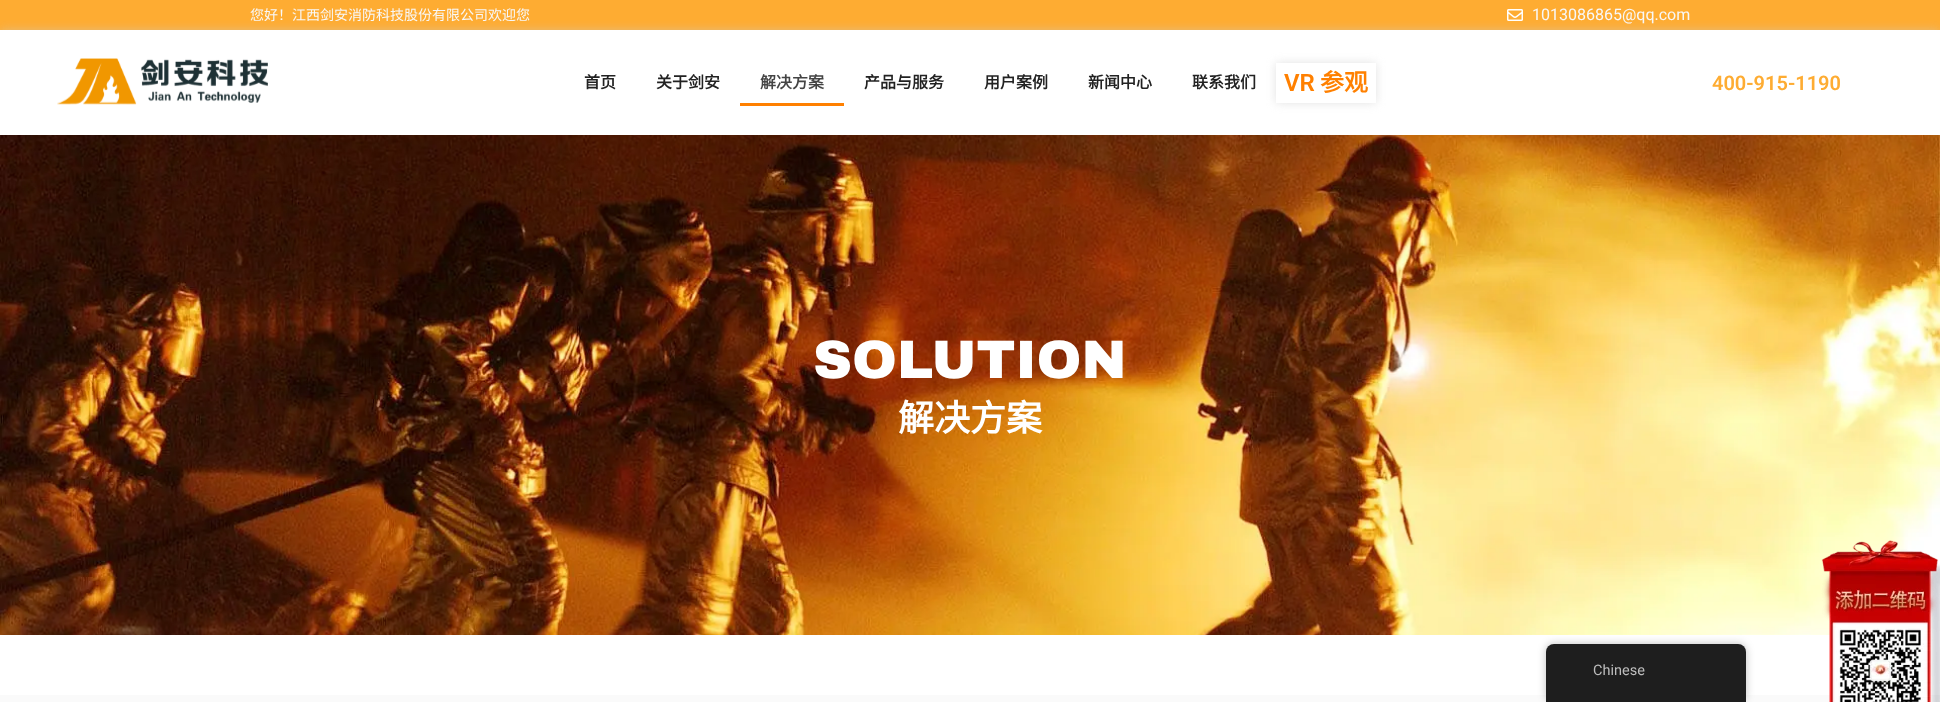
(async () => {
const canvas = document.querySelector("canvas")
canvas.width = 1940
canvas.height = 702
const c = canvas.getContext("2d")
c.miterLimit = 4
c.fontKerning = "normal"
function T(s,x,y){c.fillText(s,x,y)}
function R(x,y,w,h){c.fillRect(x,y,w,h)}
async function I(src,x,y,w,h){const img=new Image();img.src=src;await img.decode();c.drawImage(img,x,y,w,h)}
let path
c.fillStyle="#fff"
R(0,0,1940,702)
c.fillStyle="#feac32"
R(0,0,1940,30)
c.font="14px Noto Sans CJK SC"
c.fillStyle="#f8f8f8"
T("您好！江西剑安消防科技股份有限公司欢迎您",250,20)
await I("1.png",1507,9,16,12)
c.font="16px Roboto"
T("1013086865@qq.com",1532,20)
c.save()
c.beginPath()
c.rect(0,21,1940,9)
c.clip()
c.fillStyle="#cecece80"
c.filter="blur(5px)"
c.beginPath()
c.rect(0,30,1940,105)
c.fill()
c.filter="none"
c.restore()
await I("2.png",57,58,211,47)
c.font="bold 16px Noto Sans CJK SC"
c.fillStyle="#222"
T("首页",584,88)
T("关于剑安",656,88)
c.fillStyle="#444"
T("解决方案",760,88)
c.fillStyle="#ff8000"
R(740,103,104,3)
c.fillStyle="#222"
T("产品与服务",864,88)
T("用户案例",984,88)
T("新闻中心",1088,88)
T("联系我们",1192,88)
c.save()
path = new Path2D("M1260 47h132v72h-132zm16 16h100v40h-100z")
c.clip(path,"evenodd")
c.fillStyle="#c5c5c580"
c.filter="blur(5px)"
c.beginPath()
c.rect(1276,63,100,40)
c.fill()
c.filter="none"
c.restore()
c.font="600 24px Roboto"
c.fillStyle="#ff8000"
T("VR",1284,91)
c.font="bold 24px Noto Sans CJK SC"
T("参观",1320,91)
c.font="600 20px Roboto"
c.fillStyle="#feac32"
T("400-915-1190",1712,90)
await I("3.png",0,135,1940,500)
c.font="54px Archivo Black"
c.fillStyle="#fff"
T("SOLUTION",813,378)
c.font="bold 36px Noto Sans CJK SC"
T("解决方案",898,431)
c.fillStyle="#fafafa"
R(0,695,1940,7)
c.fillStyle="#00000040"
c.filter="blur(4px)"
c.beginPath()
c.roundRect(1546,644,200,58,8)
c.fill()
c.filter="none"
c.fillStyle="#1e1e1e"
c.beginPath()
c.roundRect(1546,644,200,58,[8,8,0,0])
c.fill()
c.font="14.5px Roboto"
c.fillStyle="#bdbdbd"
T("Chinese",1593,675)
await I("4.png",1821,540,119,162)
})()
